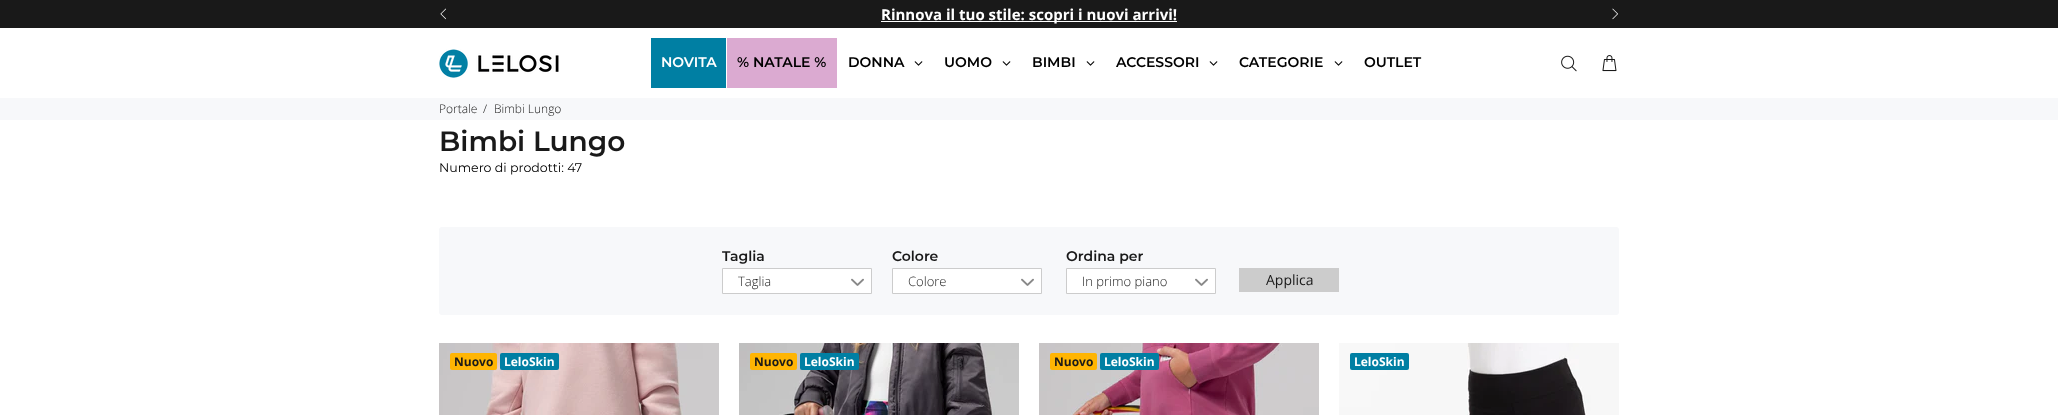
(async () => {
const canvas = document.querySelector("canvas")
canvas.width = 2058
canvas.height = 415
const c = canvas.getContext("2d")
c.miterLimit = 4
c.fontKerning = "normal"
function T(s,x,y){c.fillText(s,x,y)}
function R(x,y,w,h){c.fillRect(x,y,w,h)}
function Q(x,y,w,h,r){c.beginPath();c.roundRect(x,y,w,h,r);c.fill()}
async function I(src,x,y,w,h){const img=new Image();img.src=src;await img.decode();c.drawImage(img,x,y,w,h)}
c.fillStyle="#fff"
R(0,0,2058,415)
c.fillStyle="#191919"
R(0,0,2058,28)
await I("1.png",440,8,6,12)
c.fillStyle="#fff"
R(881,21,296,1)
c.font="bold 15px Open Sans"
T("Rinnova il tuo stile: scopri i nuovi arrivi!",881,20)
await I("2.png",1612,8,6,12)
await I("3.png",439,49,120,29)
c.fillStyle="#007fa3"
R(651,38,75,50)
c.font="600 14px Montserrat"
c.fillStyle="#fff"
T("NOVITA",661,67)
c.fillStyle="#dbaad1"
R(727,38,110,50)
c.fillStyle="#000"
T("% NATALE %",737,67)
T("DONNA",848,67)
await I("4.png",914,61,9,5)
T("UOMO",944,67)
await I("4.png",1002,61,9,5)
T("BIMBI",1032,67)
await I("4.png",1086,61,9,5)
T("ACCESSORI",1116,67)
await I("4.png",1209,61,9,5)
T("CATEGORIE",1239,67)
await I("4.png",1334,61,9,5)
T("OUTLET",1364,67)
await I("5.png",1561,55,16,17)
await I("6.png",1602,55,15,17)
c.fillStyle="#f7f8fa"
R(0,98,2058,22)
c.font="300 12px Open Sans"
c.fillStyle="#191919"
T("Portale",439,113)
T("/",483,113)
T("Bimbi Lungo",494,113)
c.font="600 28px Montserrat"
T("Bimbi Lungo",439,151)
c.font="12.6px Montserrat"
c.fillStyle="#000"
T("Numero di prodotti: 47",439,172)
c.fillStyle="#f7f8fa"
Q(439,227,1180,88,3)
c.font="600 14px Montserrat"
c.fillStyle="#191919"
T("Taglia",722,261)
c.fillStyle="#fff"
c.beginPath()
c.rect(722.5,268.5,149,25)
c.fill()
c.strokeStyle="#ccc"
c.stroke()
c.font="300 13px Open Sans"
c.fillStyle="#191919"
T("Taglia",738,286)
await I("7.png",851,278,13,8)
c.font="600 14px Montserrat"
T("Colore",892,261)
c.fillStyle="#fff"
c.beginPath()
c.rect(892.5,268.5,149,25)
c.fill()
c.stroke()
c.font="300 13px Open Sans"
c.fillStyle="#191919"
T("Colore",908,286)
await I("7.png",1021,278,13,8)
c.font="600 14px Montserrat"
T("Ordina per",1066,261)
c.fillStyle="#fff"
c.beginPath()
c.rect(1066.5,268.5,149,25)
c.fill()
c.stroke()
c.font="300 13px Open Sans"
c.fillStyle="#191919"
T("In primo piano",1082,286)
await I("7.png",1195,278,13,8)
c.fillStyle="#ccc"
R(1239,268,100,24)
c.font="14px Open Sans"
c.fillStyle="#191919"
T("Applica",1266,285)
await I("8.png",439,343,280,72)
c.fillStyle="#ffb503"
Q(450,353,47,17,2)
c.font="bold 12px Open Sans"
c.fillStyle="#191919"
T("Nuovo",454,366)
c.fillStyle="#007fa3"
Q(500,353,59,17,2)
c.fillStyle="#fff"
T("LeloSkin",504,366)
await I("9.png",739,343,280,72)
c.fillStyle="#ffb503"
Q(750,353,47,17,2)
c.fillStyle="#191919"
T("Nuovo",754,366)
c.fillStyle="#007fa3"
Q(800,353,59,17,2)
c.fillStyle="#fff"
T("LeloSkin",804,366)
await I("10.png",1039,343,280,72)
c.fillStyle="#ffb503"
Q(1050,353,47,17,2)
c.fillStyle="#191919"
T("Nuovo",1054,366)
c.fillStyle="#007fa3"
Q(1100,353,59,17,2)
c.fillStyle="#fff"
T("LeloSkin",1104,366)
await I("11.png",1339,343,280,72)
c.fillStyle="#007fa3"
Q(1350,353,59,17,2)
c.fillStyle="#fff"
T("LeloSkin",1354,366)
})()
